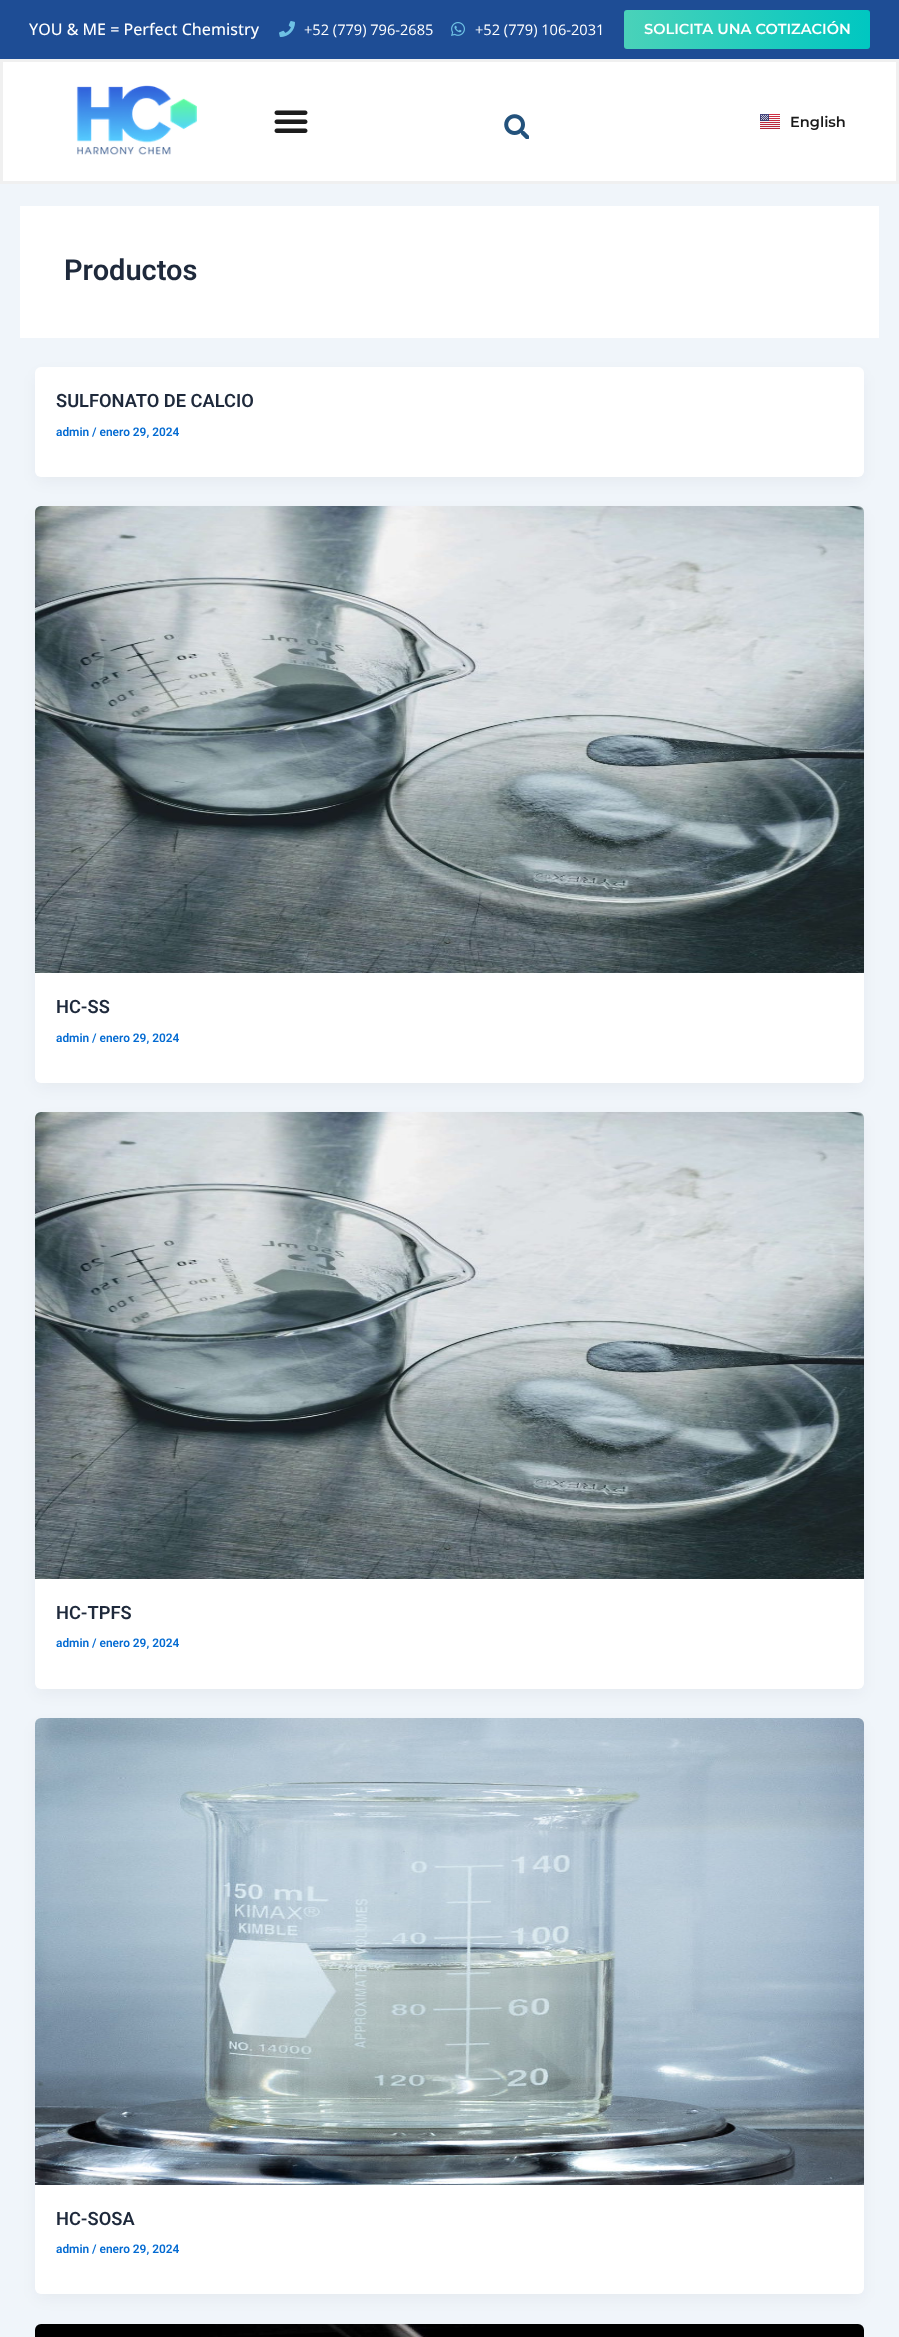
(async () => {
const canvas = document.querySelector("canvas")
canvas.width = 899
canvas.height = 2337
const c = canvas.getContext("2d")
c.miterLimit = 4
c.fontKerning = "normal"
function T(s,x,y){c.fillText(s,x,y)}
function R(x,y,w,h){c.fillRect(x,y,w,h)}
function Q(x,y,w,h,r){c.beginPath();c.roundRect(x,y,w,h,r);c.fill()}
async function I(src,x,y,w,h){const img=new Image();img.src=src;await img.decode();c.drawImage(img,x,y,w,h)}
let gradient, path
c.fillStyle="#f0f5fa"
R(0,0,899,2337)
c.fillStyle="#1e4d95"
R(0,0,899,59)
c.font="500 16px Open Sans"
c.fillStyle="#fff"
T("YOU & ME = Perfect Chemistry",29,35)
await I("1.png",279,21,16,16)
c.font="14.6px Open Sans"
T("+52 (779) 796-2685",304,35)
await I("2.png",451,22,14,14)
T("+52 (779) 106-2031",475,35)
gradient = c.createLinearGradient(870,29,624,30)
gradient.addColorStop(0,"#00c7c1")
gradient.addColorStop(1,"#4ad2b9")
c.fillStyle = gradient
Q(624,10,246,39,3)
c.font="600 14.6px Montserrat"
c.fillStyle="#fff"
T("SOLICITA UNA COTIZACIÓN",644,34)
R(3,62,893,119)
path = new Path2D("M1.5 60.5h896v122h-896z")
c.strokeStyle="#f0f0f0"
c.lineWidth=3
c.stroke(path)
await I("3.png",76,85,121,70)
await I("4.png",274,110,34,23)
await I("5.png",504,114,25,25)
await I("6.png",760,114,20,15)
c.fillStyle="#1a1a1a"
T("English",790,127)
c.fillStyle="#fff"
R(20,206,859,132)
c.font="600 29px Roboto"
c.fillStyle="#1e293b"
T("Productos",64,280)
c.fillStyle="#1018280d"
c.filter="blur(7.5px)"
c.beginPath()
c.roundRect(37,375,825,106,4)
c.fill()
c.filter="none"
c.fillStyle="#fff"
Q(35,367,829,110,6)
c.font="600 18.25px Roboto"
c.fillStyle="#1e293b"
T("SULFONATO DE CALCIO",56,407)
c.font="600 11.9px Roboto"
c.fillStyle="#046bd2"
T("admin / enero 29, 2024",56,436)
c.fillStyle="#1018280d"
c.filter="blur(7.5px)"
c.beginPath()
c.roundRect(37,514,825,573,4)
c.fill()
c.filter="none"
c.fillStyle="#fff"
Q(35,506,829,577,6)
await I("7.png",35,506,829,467)
c.font="600 18.25px Roboto"
c.fillStyle="#1e293b"
T("HC-SS",56,1013)
c.font="600 11.9px Roboto"
c.fillStyle="#046bd2"
T("admin / enero 29, 2024",56,1042)
c.fillStyle="#1018280d"
c.filter="blur(7.5px)"
c.beginPath()
c.roundRect(37,1120,825,573,4)
c.fill()
c.filter="none"
c.fillStyle="#fff"
Q(35,1112,829,577,6)
await I("8.png",35,1112,829,467)
c.font="600 18.25px Roboto"
c.fillStyle="#1e293b"
T("HC-TPFS",56,1619)
c.font="600 11.9px Roboto"
c.fillStyle="#046bd2"
T("admin / enero 29, 2024",56,1647)
c.fillStyle="#1018280d"
c.filter="blur(7.5px)"
c.beginPath()
c.roundRect(37,1726,825,572,4)
c.fill()
c.filter="none"
c.fillStyle="#fff"
Q(35,1718,829,576,6)
await I("9.png",35,1718,829,467)
c.font="600 18.25px Roboto"
c.fillStyle="#1e293b"
T("HC-SOSA",56,2225)
c.font="600 11.9px Roboto"
c.fillStyle="#046bd2"
T("admin / enero 29, 2024",56,2253)
await I("10.png",35,2324,829,13)
})()
